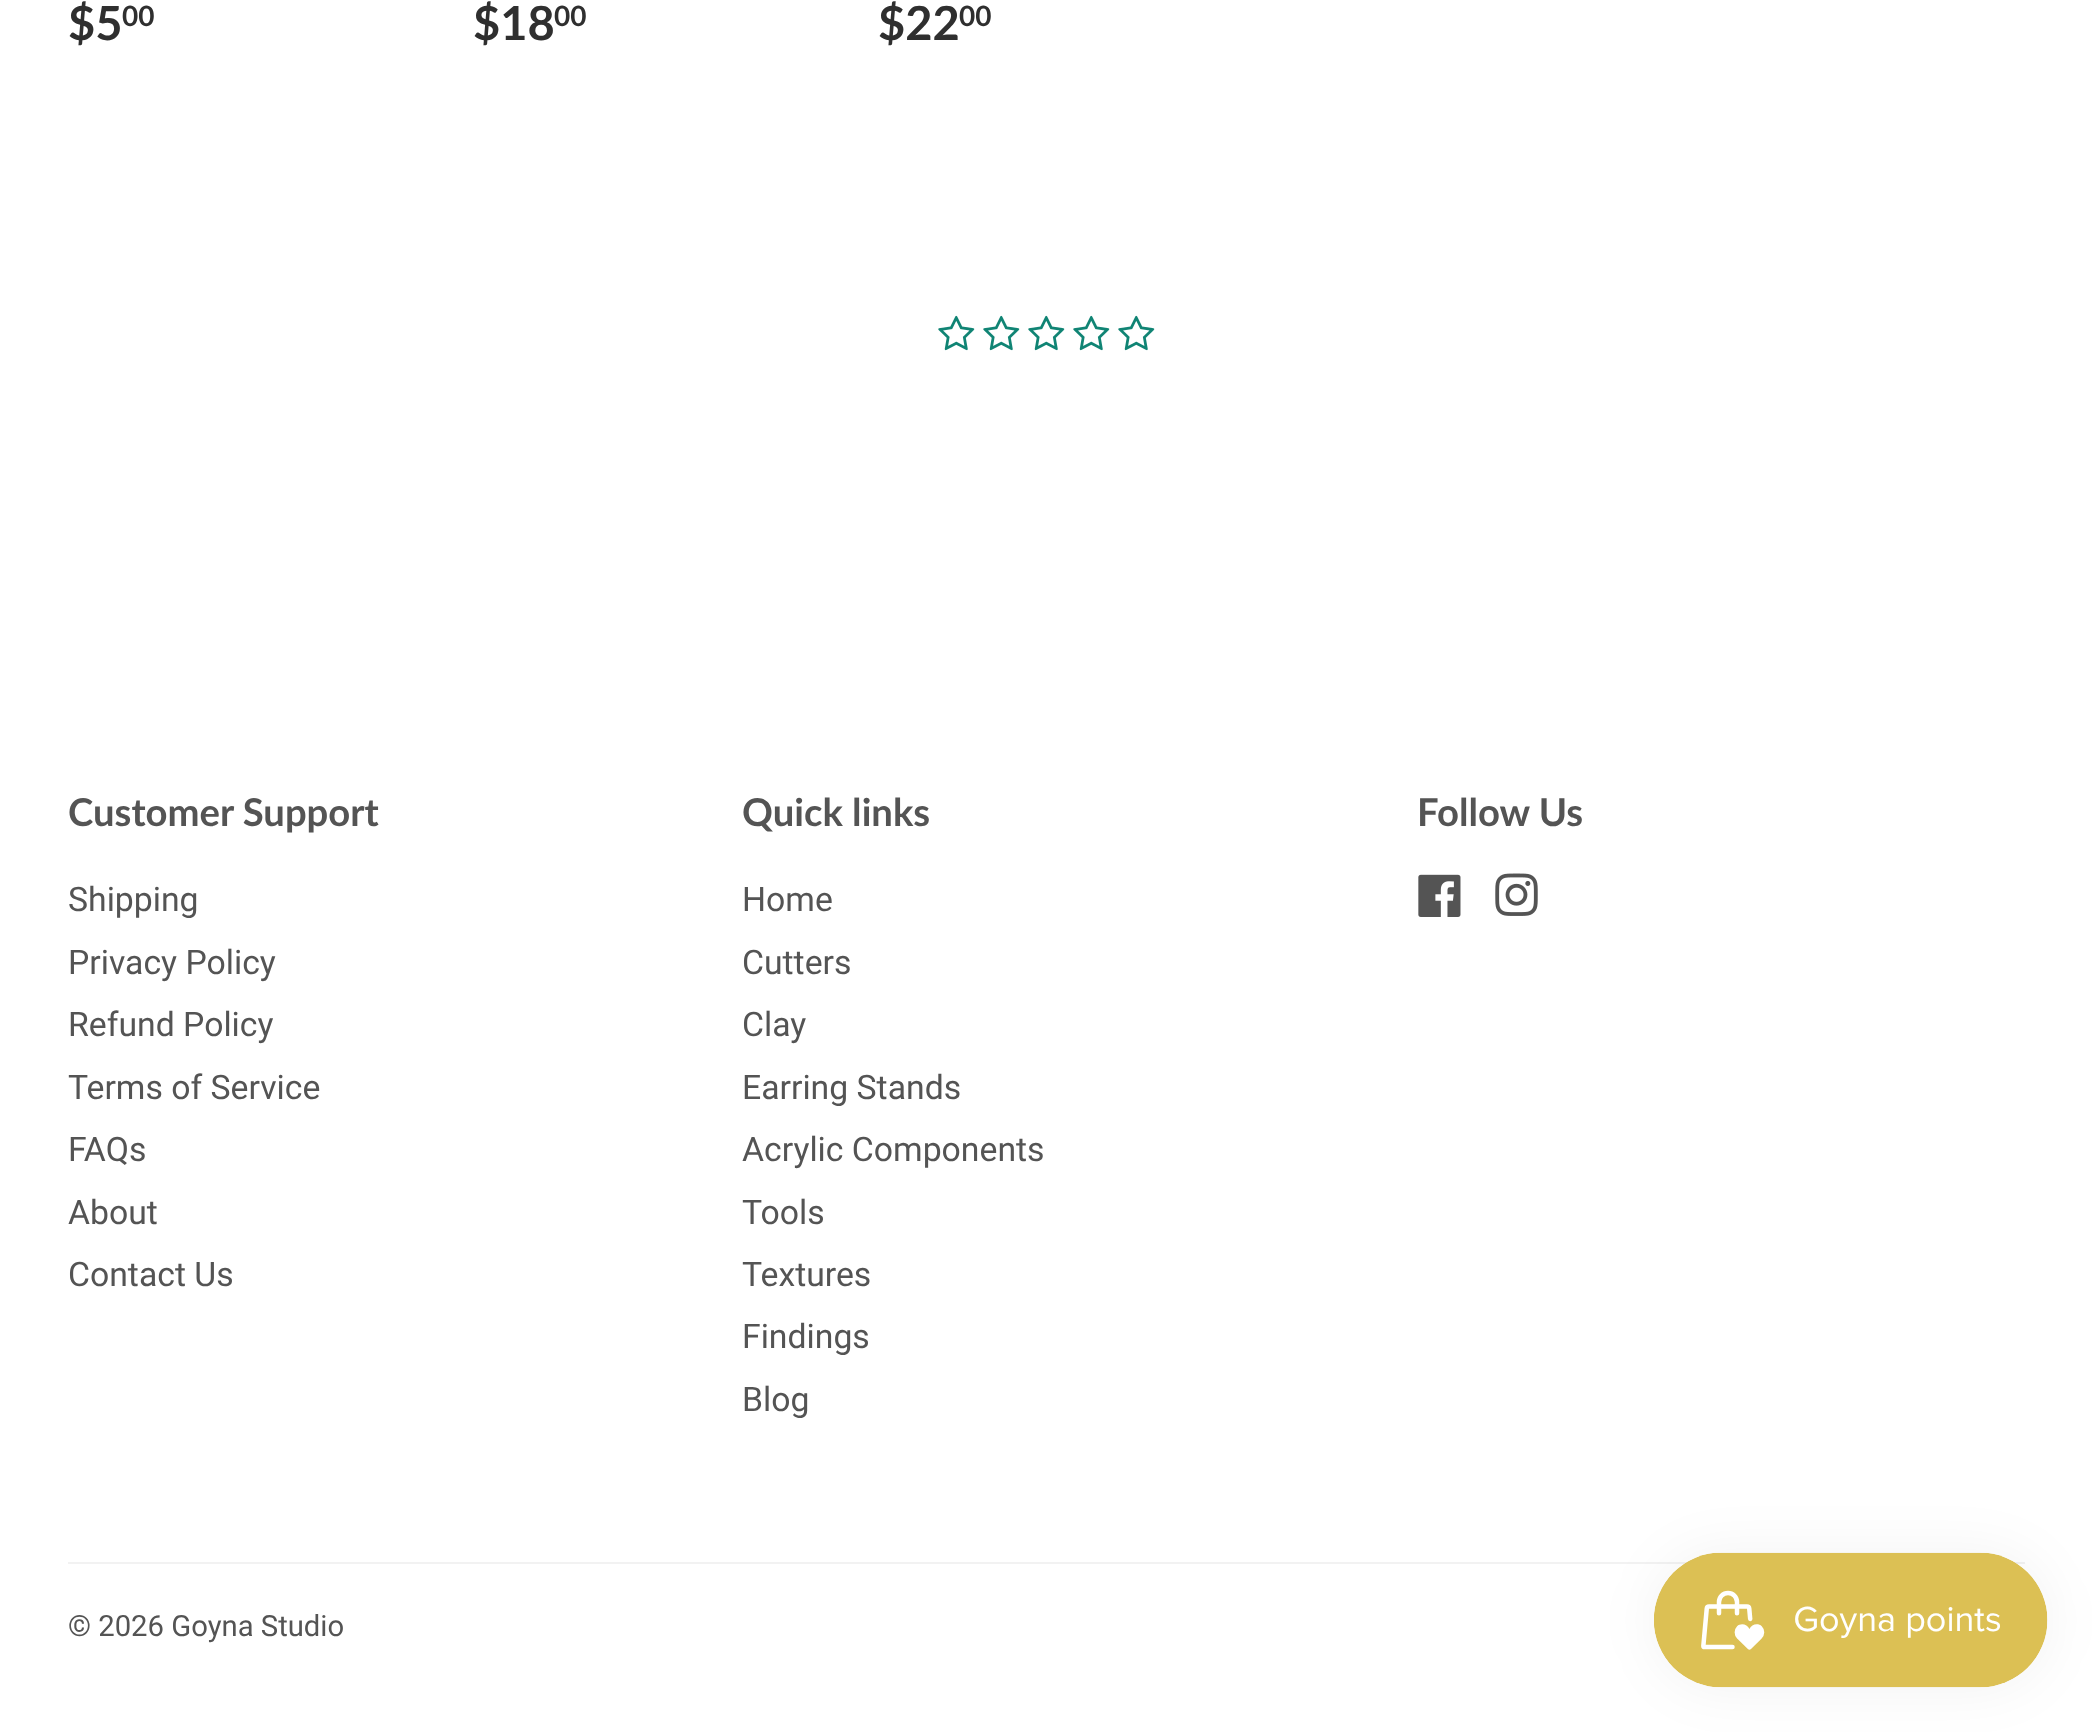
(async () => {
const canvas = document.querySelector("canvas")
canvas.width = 2092
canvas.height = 1732
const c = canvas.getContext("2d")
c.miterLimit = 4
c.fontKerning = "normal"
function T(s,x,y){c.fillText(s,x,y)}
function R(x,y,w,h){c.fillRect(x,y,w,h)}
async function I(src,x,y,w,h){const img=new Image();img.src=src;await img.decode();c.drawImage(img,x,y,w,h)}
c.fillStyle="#fff"
R(0,0,2092,1732)
c.font="bold 47px Lato"
c.fillStyle="#2f2f2f"
T("$5",68,40)
c.font="bold 28px Lato"
T("00",122,26)
c.font="bold 47px Lato"
T("$18",473,40)
c.font="bold 28px Lato"
T("00",554,26)
c.font="bold 47px Lato"
T("$22",878,40)
c.font="bold 28px Lato"
T("00",959,26)
await I("1.png",938,315,37,36)
await I("1.png",983,315,37,36)
await I("1.png",1028,315,37,36)
await I("1.png",1073,315,37,36)
await I("1.png",1118,315,37,36)
c.font="bold 38.25px Lato"
c.fillStyle="#545454"
T("Customer Support",68,826)
c.font="33.75px Roboto"
T("Shipping",68,911)
T("Privacy Policy",68,974)
T("Refund Policy",68,1036)
T("Terms of Service",68,1099)
T("FAQs",68,1161)
T("About",68,1224)
T("Contact Us",68,1286)
c.font="bold 38.25px Lato"
T("Quick links",742,826)
c.font="33.75px Roboto"
T("Home",742,911)
T("Cutters",742,974)
T("Clay",742,1036)
T("Earring Stands",742,1099)
T("Acrylic Components",742,1161)
T("Tools",742,1224)
T("Textures",742,1286)
T("Findings",742,1348)
T("Blog",742,1411)
c.font="bold 38.25px Lato"
T("Follow Us",1417,826)
await I("2.png",1418,874,43,43)
await I("3.png",1495,873,43,43)
c.fillStyle="#f2f2f2"
R(68,1562,1957,2)
c.font="29.25px Roboto"
c.fillStyle="#545454"
T("© 2026 Goyna Studio",68,1636)
c.fillStyle="#0000000d"
c.filter="blur(28px)"
c.beginPath()
c.roundRect(1654,1553,394,135,67.5)
c.fill()
c.filter="none"
await I("4.png",1654,1552,394,136)
})()
